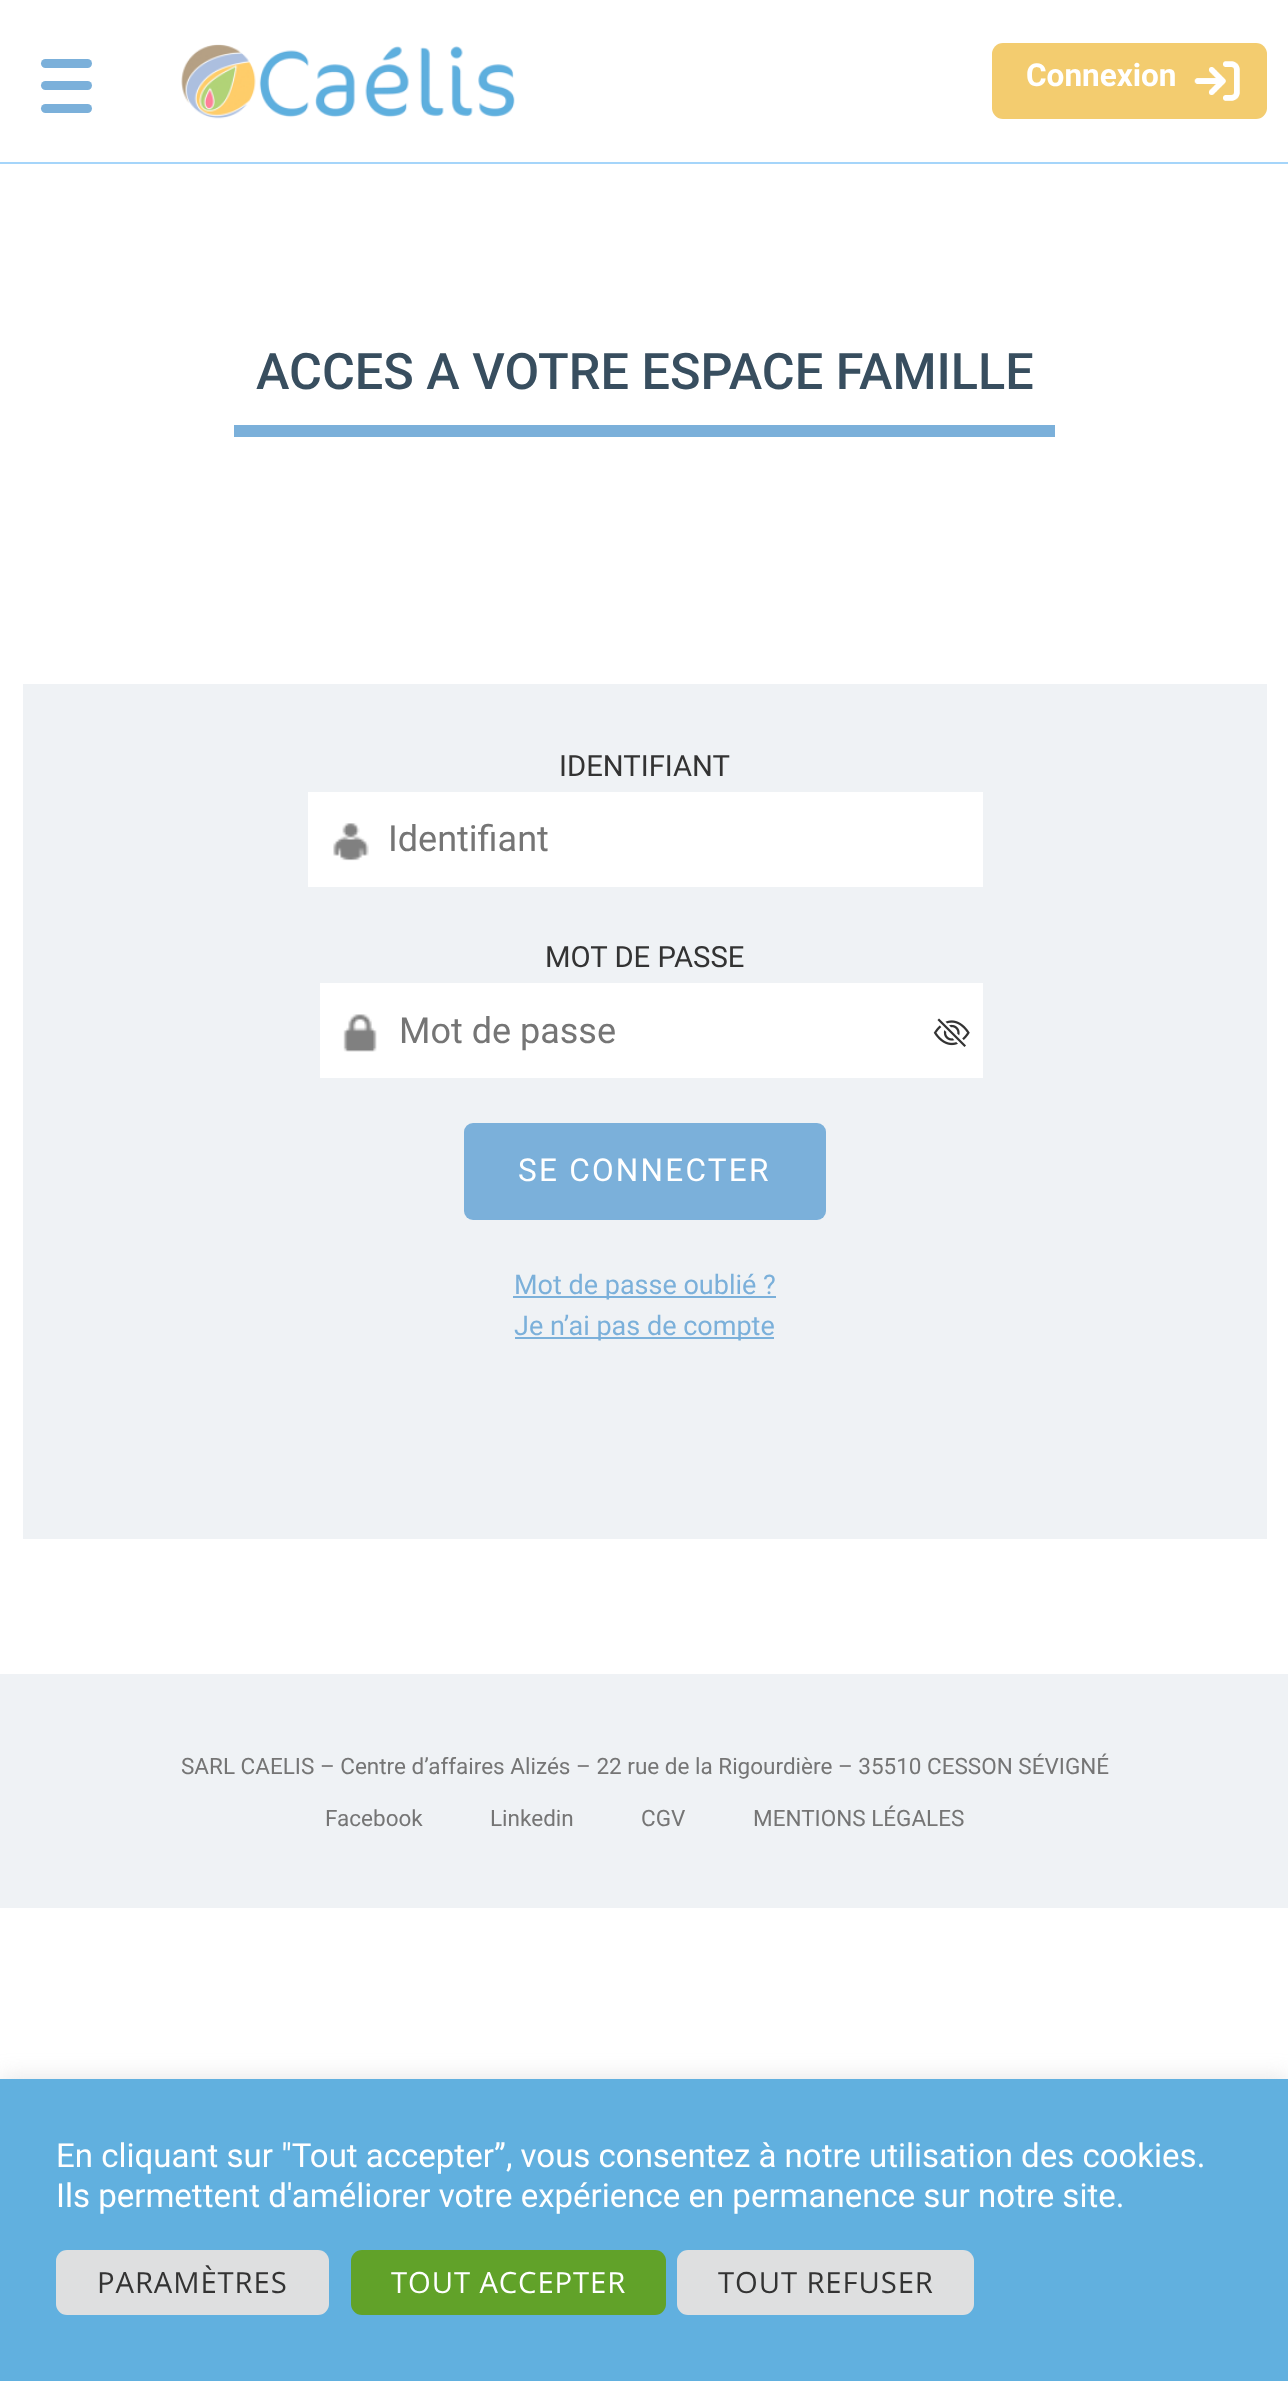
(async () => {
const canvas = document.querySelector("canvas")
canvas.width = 1288
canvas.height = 2381
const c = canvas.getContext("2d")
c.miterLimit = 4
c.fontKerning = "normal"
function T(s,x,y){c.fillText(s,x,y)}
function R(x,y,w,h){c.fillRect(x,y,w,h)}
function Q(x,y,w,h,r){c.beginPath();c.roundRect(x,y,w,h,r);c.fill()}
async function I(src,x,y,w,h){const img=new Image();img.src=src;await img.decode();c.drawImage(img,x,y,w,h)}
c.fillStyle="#fff"
R(0,0,1288,2381)
c.fillStyle="#7bb0da"
Q(41,81,51,9,4.5)
Q(41,59,51,9,4.5)
Q(41,104,51,9,4.5)
await I("1.png",181,44,334,75)
c.fillStyle="#f3cc6f"
Q(992,43,275,76,11)
c.font="bold 31.5px Roboto"
c.fillStyle="#fff"
T("Connexion",1026,86)
await I("2.png",1194,61,46,40)
c.fillStyle="#a5d5fa"
R(0,162,1288,2)
c.fillStyle="#7bb0da"
R(234,425,821,12)
c.font="500 50.4px Roboto"
c.fillStyle="#384e5f"
T("ACCES A VOTRE ESPACE FAMILLE",256,389)
c.fillStyle="#eff2f5"
R(23,684,1244,855)
c.font="29.25px Roboto"
c.fillStyle="#333"
T("IDENTIFIANT",559,776)
c.fillStyle="#fff"
R(308,792,675,95)
await I("3.png",333,823,36,38)
c.font="36px Roboto"
c.fillStyle="#757575"
T("Identifiant",388,851)
c.font="29.25px Roboto"
c.fillStyle="#333"
T("MOT DE PASSE",545,967)
c.fillStyle="#fff"
R(320,983,663,95)
await I("4.png",343,1014,34,38)
c.font="36px Roboto"
c.fillStyle="#757575"
T("Mot de passe",399,1043)
await I("5.png",933,1018,37,29)
c.fillStyle="#7bb0da"
Q(464,1123,362,97,9)
c.letterSpacing="2.25px"
c.font="31.5px Roboto"
c.fillStyle="#fff"
T("SE CONNECTER",518,1181)
c.fillStyle="#7bb0da"
R(513,1296,263,2)
c.letterSpacing="0px"
c.font="27px Roboto"
T("Mot de passe oublié ?",514,1294)
R(515,1337,259,2)
T("Je n’ai pas de compte",514,1335)
c.fillStyle="#eff2f5"
R(0,1674,1288,234)
c.font="22.5px Roboto"
c.fillStyle="#757575"
T("SARL CAELIS – Centre d’affaires Alizés – 22 rue de la Rigourdière – 35510 CESSON SÉVIGNÉ",181,1774)
T("Facebook",325,1826)
T("Linkedin",490,1826)
T("CGV",641,1826)
T("MENTIONS LÉGALES",753,1826)
c.fillStyle="#acabab4d"
c.filter="blur(11px)"
c.beginPath()
c.rect(0,2077,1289,304)
c.fill()
c.filter="none"
c.fillStyle="#61b0df"
R(0,2079,1288,302)
c.font="33px Roboto"
c.fillStyle="#fff"
T("En cliquant sur \"Tout accepter”, vous consentez à notre utilisation des cookies.",56,2167)
T("Ils permettent d'améliorer votre expérience en permanence sur notre site.",56,2207)
c.fillStyle="#dedfe0"
Q(56,2250,273,65,11)
c.letterSpacing="0.9px"
c.font="29.25px Open Sans"
c.fillStyle="#333"
T("PARAMÈTRES",97,2293)
c.fillStyle="#61a229"
Q(351,2250,315,65,11)
c.fillStyle="#fff"
T("TOUT ACCEPTER",391,2293)
c.fillStyle="#dedfe0"
Q(677,2250,297,65,11)
c.fillStyle="#333"
T("TOUT REFUSER",718,2293)
})()
